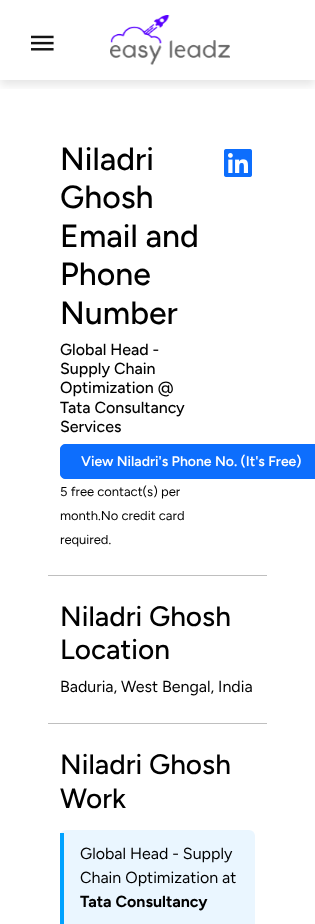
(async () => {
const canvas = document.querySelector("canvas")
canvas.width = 315
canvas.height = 924
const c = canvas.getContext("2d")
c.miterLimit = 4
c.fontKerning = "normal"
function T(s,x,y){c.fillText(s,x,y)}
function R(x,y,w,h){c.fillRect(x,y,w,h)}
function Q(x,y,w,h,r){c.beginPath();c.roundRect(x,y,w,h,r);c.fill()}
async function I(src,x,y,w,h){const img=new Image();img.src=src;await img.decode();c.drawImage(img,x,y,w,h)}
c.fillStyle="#fff"
R(0,0,315,924)
c.save()
c.beginPath()
c.rect(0,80,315,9)
c.clip()
c.fillStyle="#0000001a"
c.filter="blur(5px)"
c.beginPath()
c.rect(0,5,315,80)
c.fill()
c.filter="none"
c.restore()
await I("1.png",31,35,23,16)
await I("2.png",110,15,120,50)
c.font="500 32px Figtree"
c.fillStyle="#000"
T("Niladri",60,170)
T("Ghosh",60,208)
T("Email and",60,247)
T("Phone",60,285)
T("Number",60,324)
c.font="500 16px Figtree"
T("Global Head -",60,355)
T("Supply Chain",60,374)
T("Optimization @",60,393)
T("Tata Consultancy",60,413)
T("Services",60,432)
c.fillStyle="#0d6efd"
c.beginPath()
c.roundRect(60.5,444.5,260,34,4.5)
c.fill()
c.strokeStyle="#0d6efd"
c.stroke()
c.font="600 14px Figtree"
c.fillStyle="#fff"
T("View Niladri's Phone No. (It's Free)",81,466)
c.font="13px Figtree"
c.fillStyle="#000"
T("5 free contact(s) per",60,496)
T("month.No credit card",60,520)
T("required.",60,544)
await I("3.png",224,149,28,28)
c.fillStyle="#bfbfbf"
R(48,575,219,1)
c.font="500 28px Figtree"
c.fillStyle="#000"
T("Niladri Ghosh",60,626)
T("Location",60,659)
c.font="16px Figtree"
T("Baduria, West Bengal, India",60,692)
c.fillStyle="#bfbfbf"
R(48,723,219,1)
c.font="500 28px Figtree"
c.fillStyle="#000"
T("Niladri Ghosh",60,774)
T("Work",60,808)
c.fillStyle="#eaf6ff"
Q(60,830,195,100,6)
c.fillStyle="#00a2ff"
R(60,833,4,91)
c.font="16px Figtree"
c.fillStyle="#000"
T("Global Head - Supply",80,859)
T("Chain Optimization at",80,883)
c.font="bold 16px Figtree"
T("Tata Consultancy",80,907)
})()
